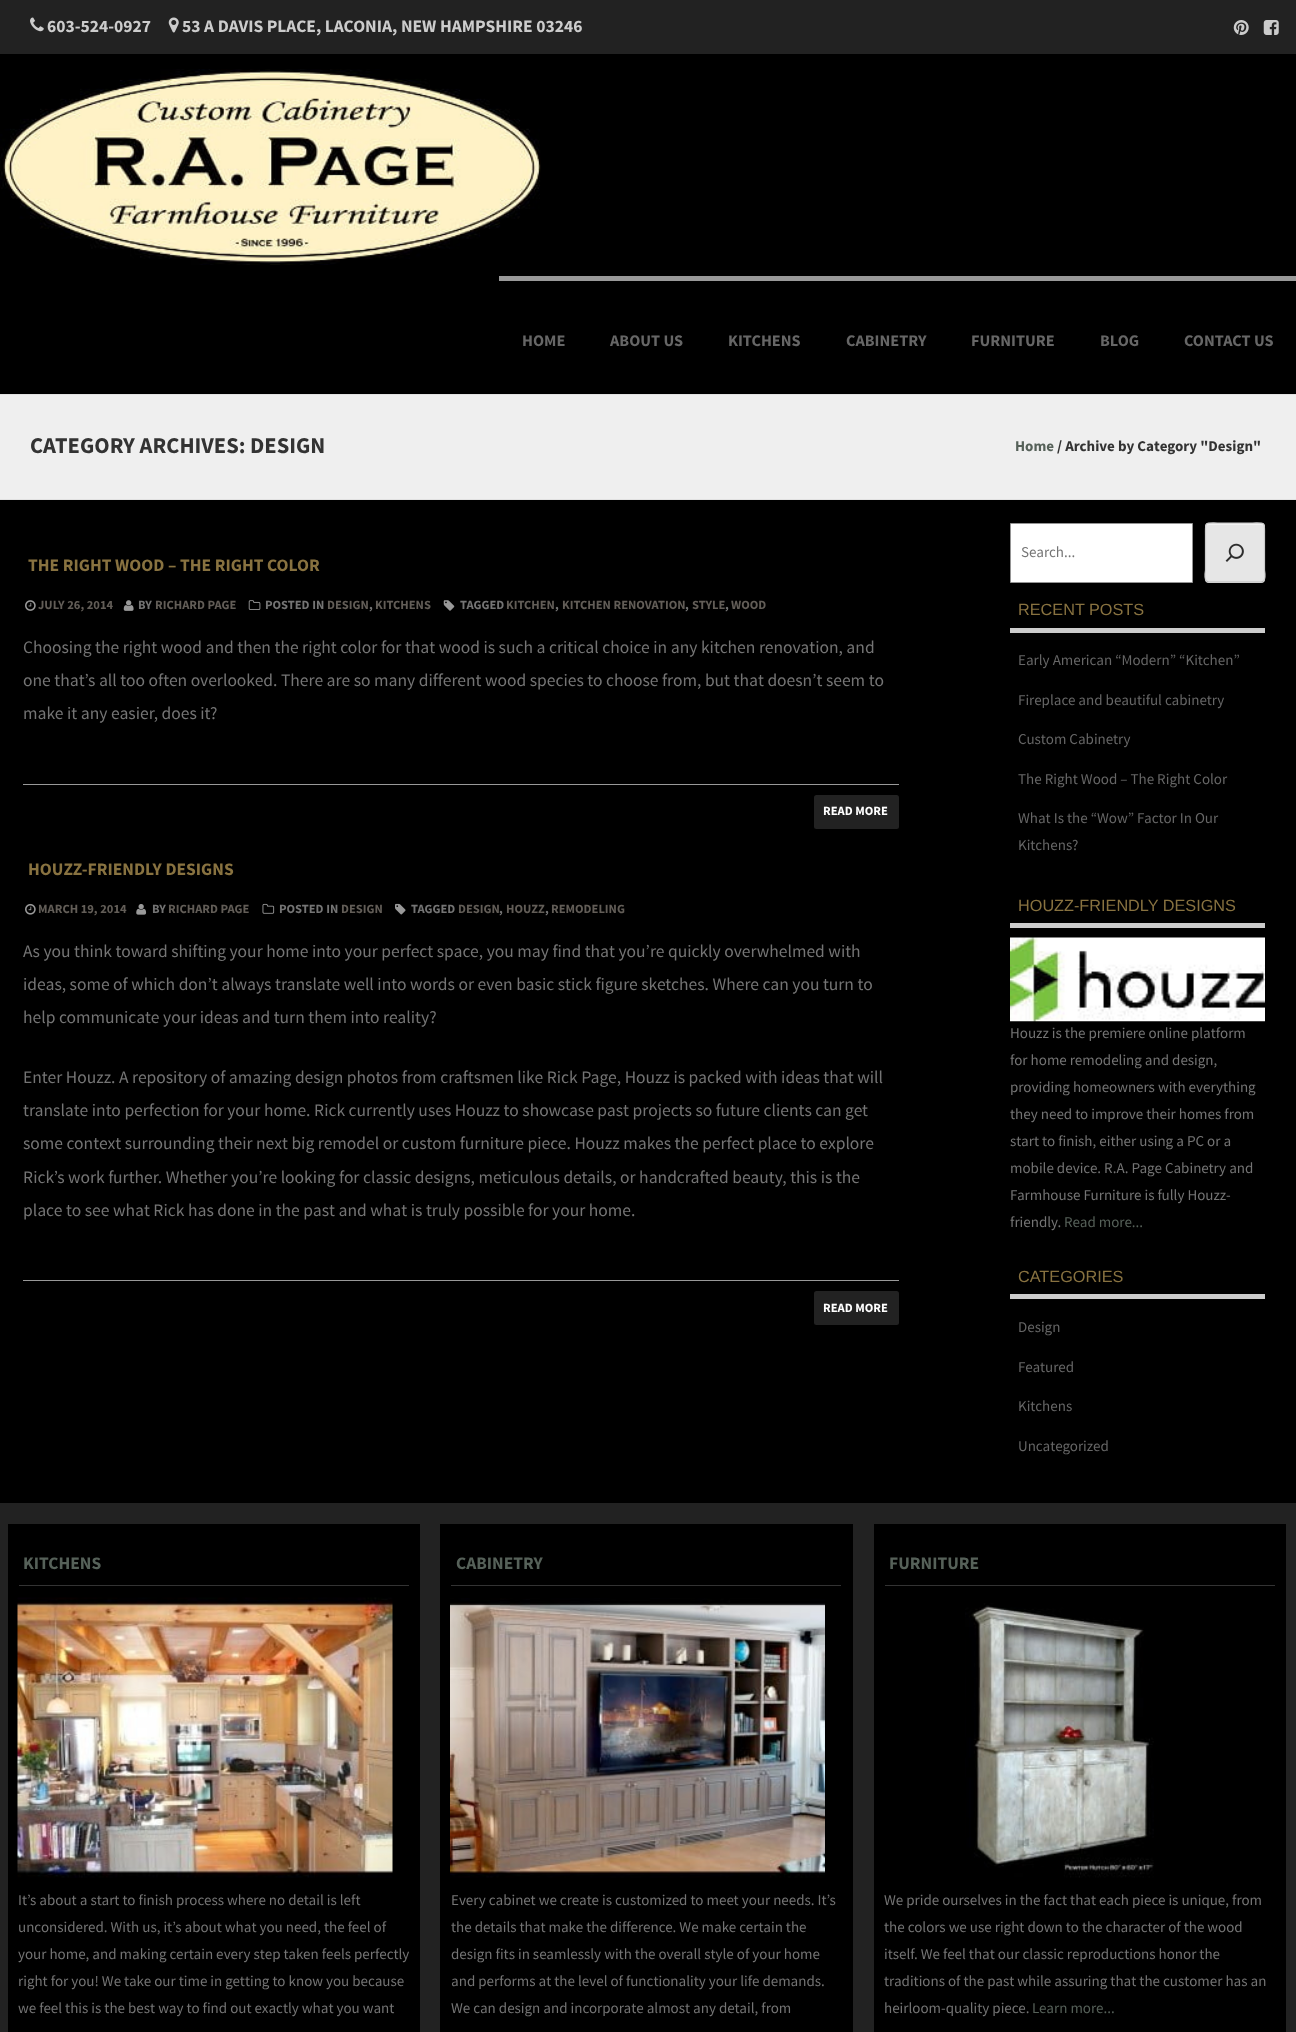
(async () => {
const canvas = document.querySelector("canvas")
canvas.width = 1296
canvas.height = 2032
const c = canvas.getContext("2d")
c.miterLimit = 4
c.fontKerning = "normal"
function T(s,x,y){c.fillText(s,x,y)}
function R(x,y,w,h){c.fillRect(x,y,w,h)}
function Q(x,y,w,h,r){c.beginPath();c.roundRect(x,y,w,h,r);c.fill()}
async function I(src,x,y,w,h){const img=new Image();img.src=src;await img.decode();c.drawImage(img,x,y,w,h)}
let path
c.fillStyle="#000"
R(0,0,1296,2032)
c.fillStyle="#222"
R(0,0,1296,54)
await I("1.png",30,17,14,15)
c.font="bold 17.5px Source Sans Pro"
c.fillStyle="#ccc"
T("603-524-0927",47,32)
await I("2.png",168,17,11,16)
T("53 A DAVIS PLACE, LACONIA, NEW HAMPSHIRE 03246",182,32)
await I("3.png",1233,20,16,15)
await I("4.png",1263,20,16,15)
await I("5.png",0,69,541,196)
c.fillStyle="#999"
R(499,276,797,5)
c.font="bold 16.25px Source Sans Pro"
c.fillStyle="#666"
T("HOME",522,346)
T("ABOUT US",610,346)
T("KITCHENS",728,346)
T("CABINETRY",846,346)
T("FURNITURE",971,346)
T("BLOG",1100,346)
T("CONTACT US",1184,346)
c.fillStyle="#efefef"
R(0,395,1296,104)
c.fillStyle="#e1e1e1"
R(0,394,1296,1)
R(0,499,1296,1)
c.font="bold 22.5px Source Sans Pro"
c.fillStyle="#333"
T("CATEGORY ARCHIVES: DESIGN",30,453)
c.font="bold 15px Source Sans Pro"
c.fillStyle="#566159"
T("Home",1015,451)
c.fillStyle="#333"
T("/ Archive by Category \"Design\"",1057,451)
c.fillStyle="#999"
R(23,784,876,1)
c.font="bold 17.5px Source Sans Pro"
c.fillStyle="#887240"
T("THE RIGHT WOOD – THE RIGHT COLOR",28,571)
await I("6.png",25,600,11,11)
c.font="bold 12.5px Source Sans Pro"
c.fillStyle="#625d57"
T("JULY 26, 2014",38,609)
await I("7.png",123,600,11,11)
c.fillStyle="#747474"
T("BY",138,609)
c.fillStyle="#625d57"
T("RICHARD PAGE",155,609)
await I("8.png",248,600,13,10)
c.fillStyle="#747474"
T("POSTED IN",265,609)
c.fillStyle="#625d57"
T("DESIGN",327,609)
c.fillStyle="#747474"
T(",",369,609)
c.fillStyle="#625d57"
T("KITCHENS",375,609)
await I("9.png",443,600,12,11)
c.fillStyle="#747474"
T("TAGGED",460,609)
c.fillStyle="#625d57"
T("KITCHEN",506,609)
c.fillStyle="#747474"
T(",",555,609)
c.fillStyle="#625d57"
T("KITCHEN RENOVATION",562,609)
c.fillStyle="#747474"
T(",",685,609)
c.fillStyle="#625d57"
T("STYLE",692,609)
c.fillStyle="#747474"
T(",",725,609)
c.fillStyle="#625d57"
T("WOOD",731,609)
c.font="17.5px Source Sans Pro"
c.fillStyle="#747474"
T("Choosing the right wood and then the right color for that wood is such a critical choice in any kitchen renovation, and",23,653)
T("one that’s all too often overlooked. There are so many different wood species to choose from, but that doesn’t seem to",23,686)
T("make it any easier, does it?",23,719)
c.fillStyle="#222"
Q(814,795,85,34,2.5)
c.font="bold 12.5px Source Sans Pro"
c.fillStyle="#fff"
T("READ MORE",823,815)
c.fillStyle="#999"
R(23,1280,876,1)
c.font="bold 17.5px Source Sans Pro"
c.fillStyle="#887240"
T("HOUZZ-FRIENDLY DESIGNS",28,875)
await I("10.png",25,903,11,12)
c.font="bold 12.5px Source Sans Pro"
c.fillStyle="#625d57"
T("MARCH 19, 2014",38,913)
await I("11.png",136,904,11,11)
c.fillStyle="#747474"
T("BY",152,913)
c.fillStyle="#625d57"
T("RICHARD PAGE",168,913)
await I("12.png",262,903,13,11)
c.fillStyle="#747474"
T("POSTED IN",279,913)
c.fillStyle="#625d57"
T("DESIGN",341,913)
await I("13.png",395,903,11,12)
c.fillStyle="#747474"
T("TAGGED",411,913)
c.fillStyle="#625d57"
T("DESIGN",458,913)
c.fillStyle="#747474"
T(",",499,913)
c.fillStyle="#625d57"
T("HOUZZ",506,913)
c.fillStyle="#747474"
T(",",545,913)
c.fillStyle="#625d57"
T("REMODELING",551,913)
c.font="17.5px Source Sans Pro"
c.fillStyle="#747474"
T("As you think toward shifting your home into your perfect space, you may find that you’re quickly overwhelmed with",23,957)
T("ideas, some of which don’t always translate well into words or even basic stick figure sketches. Where can you turn to",23,990)
T("help communicate your ideas and turn them into reality?",23,1023)
T("Enter Houzz. A repository of amazing design photos from craftsmen like Rick Page, Houzz is packed with ideas that will",23,1083)
T("translate into perfection for your home. Rick currently uses Houzz to showcase past projects so future clients can get",23,1116)
T("some context surrounding their next big remodel or custom furniture piece. Houzz makes the perfect place to explore",23,1149)
T("Rick’s work further. Whether you’re looking for classic designs, meticulous details, or handcrafted beauty, this is the",23,1183)
T("place to see what Rick has done in the past and what is truly possible for your home.",23,1216)
c.fillStyle="#222"
Q(814,1291,85,34,2.5)
c.font="bold 12.5px Source Sans Pro"
c.fillStyle="#fff"
T("READ MORE",823,1312)
c.beginPath()
c.rect(1010.5,523.5,182,59)
c.fill()
c.strokeStyle="#949494"
c.stroke()
c.font="15px Source Sans Pro"
c.fillStyle="#747474"
T("Search...",1021,557)
c.fillStyle="#e6e6e6"
Q(1205,523,60,60,4)
c.fillStyle="#f3f3f3"
path = new Path2D("M1209 525h52c2 0 3 1 3 3c0-6-6-4-11-4h-36c-5 0-11-2-11 4c0-2 1-3 3-3z")
c.fill(path)
path = new Path2D("M1263.5 581l-2 1h-53l-2-1")
c.strokeStyle="#bbb"
c.lineWidth=1.2
c.stroke(path)
path = new Path2D("M1206.5 581c-2.5-2.5-1-11-1-11v-35c0-13.5-1.5-12 12-12h35c13.5 0 12-1.5 12 12v35c0 0 1.5 8.5-1 11")
c.strokeStyle="#ccc"
c.stroke(path)
await I("14.png",1225,543,19,19)
c.fillStyle="#ccc"
R(1010,628,255,5)
c.font="16.25px Liberation Sans"
c.fillStyle="#887240"
T("RECENT POSTS",1018,615)
c.font="15px Source Sans Pro"
c.fillStyle="#666"
T("Early American “Modern” “Kitchen”",1018,665)
T("Fireplace and beautiful cabinetry",1018,705)
T("Custom Cabinetry",1018,744)
T("The Right Wood – The Right Color",1018,784)
T("What Is the “Wow” Factor In Our",1018,823)
T("Kitchens?",1018,850)
c.fillStyle="#ccc"
R(1010,923,255,5)
c.font="16.25px Liberation Sans"
c.fillStyle="#887240"
T("HOUZZ-FRIENDLY DESIGNS",1018,911)
await I("15.png",1010,937,255,85)
c.font="15px Source Sans Pro"
c.fillStyle="#747474"
T("Houzz is the premiere online platform",1010,1038)
T("for home remodeling and design,",1010,1065)
T("providing homeowners with everything",1010,1092)
T("they need to improve their homes from",1010,1119)
T("start to finish, either using a PC or a",1010,1146)
T("mobile device. R.A. Page Cabinetry and",1010,1173)
T("Farmhouse Furniture is fully Houzz-",1010,1200)
T("friendly.",1010,1227)
c.fillStyle="#566159"
T("Read more...",1064,1227)
c.fillStyle="#ccc"
R(1010,1294,255,5)
c.font="16.25px Liberation Sans"
c.fillStyle="#887240"
T("CATEGORIES",1018,1282)
c.font="15px Source Sans Pro"
c.fillStyle="#666"
T("Design",1018,1332)
T("Featured",1018,1372)
T("Kitchens",1018,1411)
T("Uncategorized",1018,1451)
c.fillStyle="#222"
R(0,1503,1296,529)
c.fillStyle="#000"
R(8,1524,412,508)
c.fillStyle="#333"
R(19,1585,390,1)
c.font="bold 17.5px Source Sans Pro"
c.fillStyle="#566159"
T("KITCHENS",23,1569)
await I("16.png",17,1597,376,281)
c.font="15px Source Sans Pro"
c.fillStyle="#747474"
T("It’s about a start to finish process where no detail is left",18,1905)
T("unconsidered. With us, it’s about what you need, the feel of",18,1932)
T("your home, and making certain every step taken feels perfectly",18,1959)
T("right for you! We take our time in getting to know you because",18,1986)
T("we feel this is the best way to find out exactly what you want",18,2013)
c.fillStyle="#000"
R(440,1524,413,508)
c.fillStyle="#333"
R(451,1585,390,1)
c.font="bold 17.5px Source Sans Pro"
c.fillStyle="#566159"
T("CABINETRY",456,1569)
await I("17.png",450,1598,375,280)
c.font="15px Source Sans Pro"
c.fillStyle="#747474"
T("Every cabinet we create is customized to meet your needs. It’s",451,1905)
T("the details that make the difference. We make certain the",451,1932)
T("design fits in seamlessly with the overall style of your home",451,1959)
T("and performs at the level of functionality your life demands.",451,1986)
T("We can design and incorporate almost any detail, from",451,2013)
c.fillStyle="#000"
R(874,1524,412,508)
c.fillStyle="#333"
R(885,1585,390,1)
c.font="bold 17.5px Source Sans Pro"
c.fillStyle="#566159"
T("FURNITURE",889,1569)
await I("18.png",965,1603,189,275)
c.font="15px Source Sans Pro"
c.fillStyle="#747474"
T("We pride ourselves in the fact that each piece is unique, from",884,1905)
T("the colors we use right down to the character of the wood",884,1932)
T("itself. We feel that our classic reproductions honor the",884,1959)
T("traditions of the past while assuring that the customer has an",884,1986)
T("heirloom-quality piece.",884,2013)
c.fillStyle="#566159"
T("Learn more...",1032,2013)
})()
